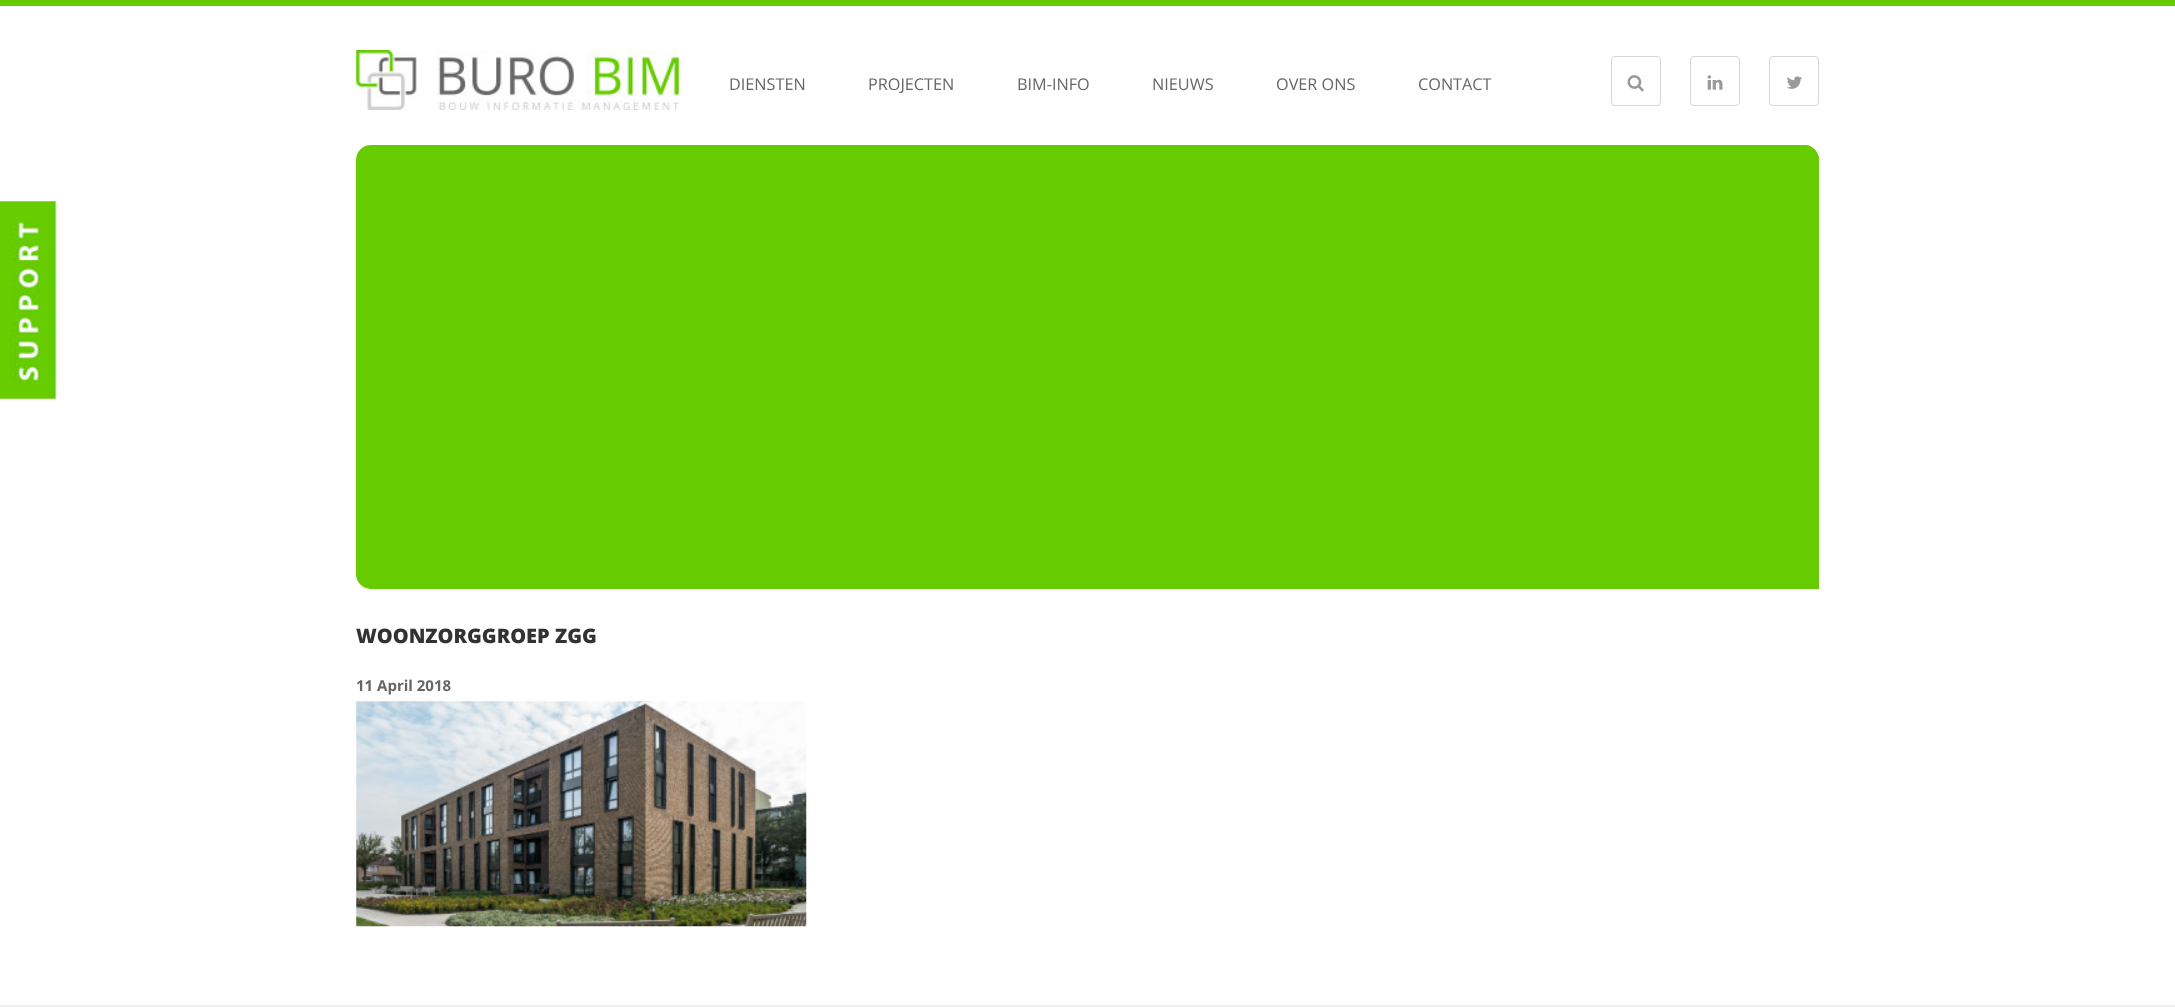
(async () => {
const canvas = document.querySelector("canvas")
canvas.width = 2175
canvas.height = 1007
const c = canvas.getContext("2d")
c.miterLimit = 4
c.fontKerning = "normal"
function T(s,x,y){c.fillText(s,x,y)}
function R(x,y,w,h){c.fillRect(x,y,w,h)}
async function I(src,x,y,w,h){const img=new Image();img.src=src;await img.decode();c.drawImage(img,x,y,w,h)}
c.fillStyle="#fff"
R(0,0,2175,1007)
await I("1.png",0,201,57,198)
c.fillStyle="#6c0"
R(0,0,2175,6)
await I("2.png",356,50,323,60)
c.font="16.25px Open Sans"
c.fillStyle="#666"
T("DIENSTEN",729,90)
T("PROJECTEN",868,90)
T("BIM-INFO",1017,90)
T("NIEUWS",1152,90)
T("OVER ONS",1276,90)
T("CONTACT",1418,90)
c.beginPath()
c.roundRect(1611.5,56.5,49,49,3.5)
c.strokeStyle="#d6d6d6"
c.stroke()
await I("3.png",1627,75,17,17)
c.beginPath()
c.roundRect(1690.5,56.5,49,49,3.5)
c.stroke()
await I("4.png",1707,75,16,15)
c.beginPath()
c.roundRect(1769.5,56.5,49,49,3.5)
c.stroke()
await I("5.png",1787,76,15,13)
c.fillStyle="#6c0"
c.beginPath()
c.roundRect(356,145,1463,444,[15,15,0,15])
c.fill()
c.beginPath()
c.roundRect(1319,145,500,444,[0,15,0,0])
c.fill()
c.font="800 20px Open Sans"
c.fillStyle="#323232"
T("WOONZORGGROEP ZGG",356,643)
c.font="bold 15px Open Sans"
c.fillStyle="#666"
T("11 April 2018",356,691)
await I("6.png",356,701,451,226)
c.fillStyle="#efefef"
R(0,1005,2175,2)
})()
